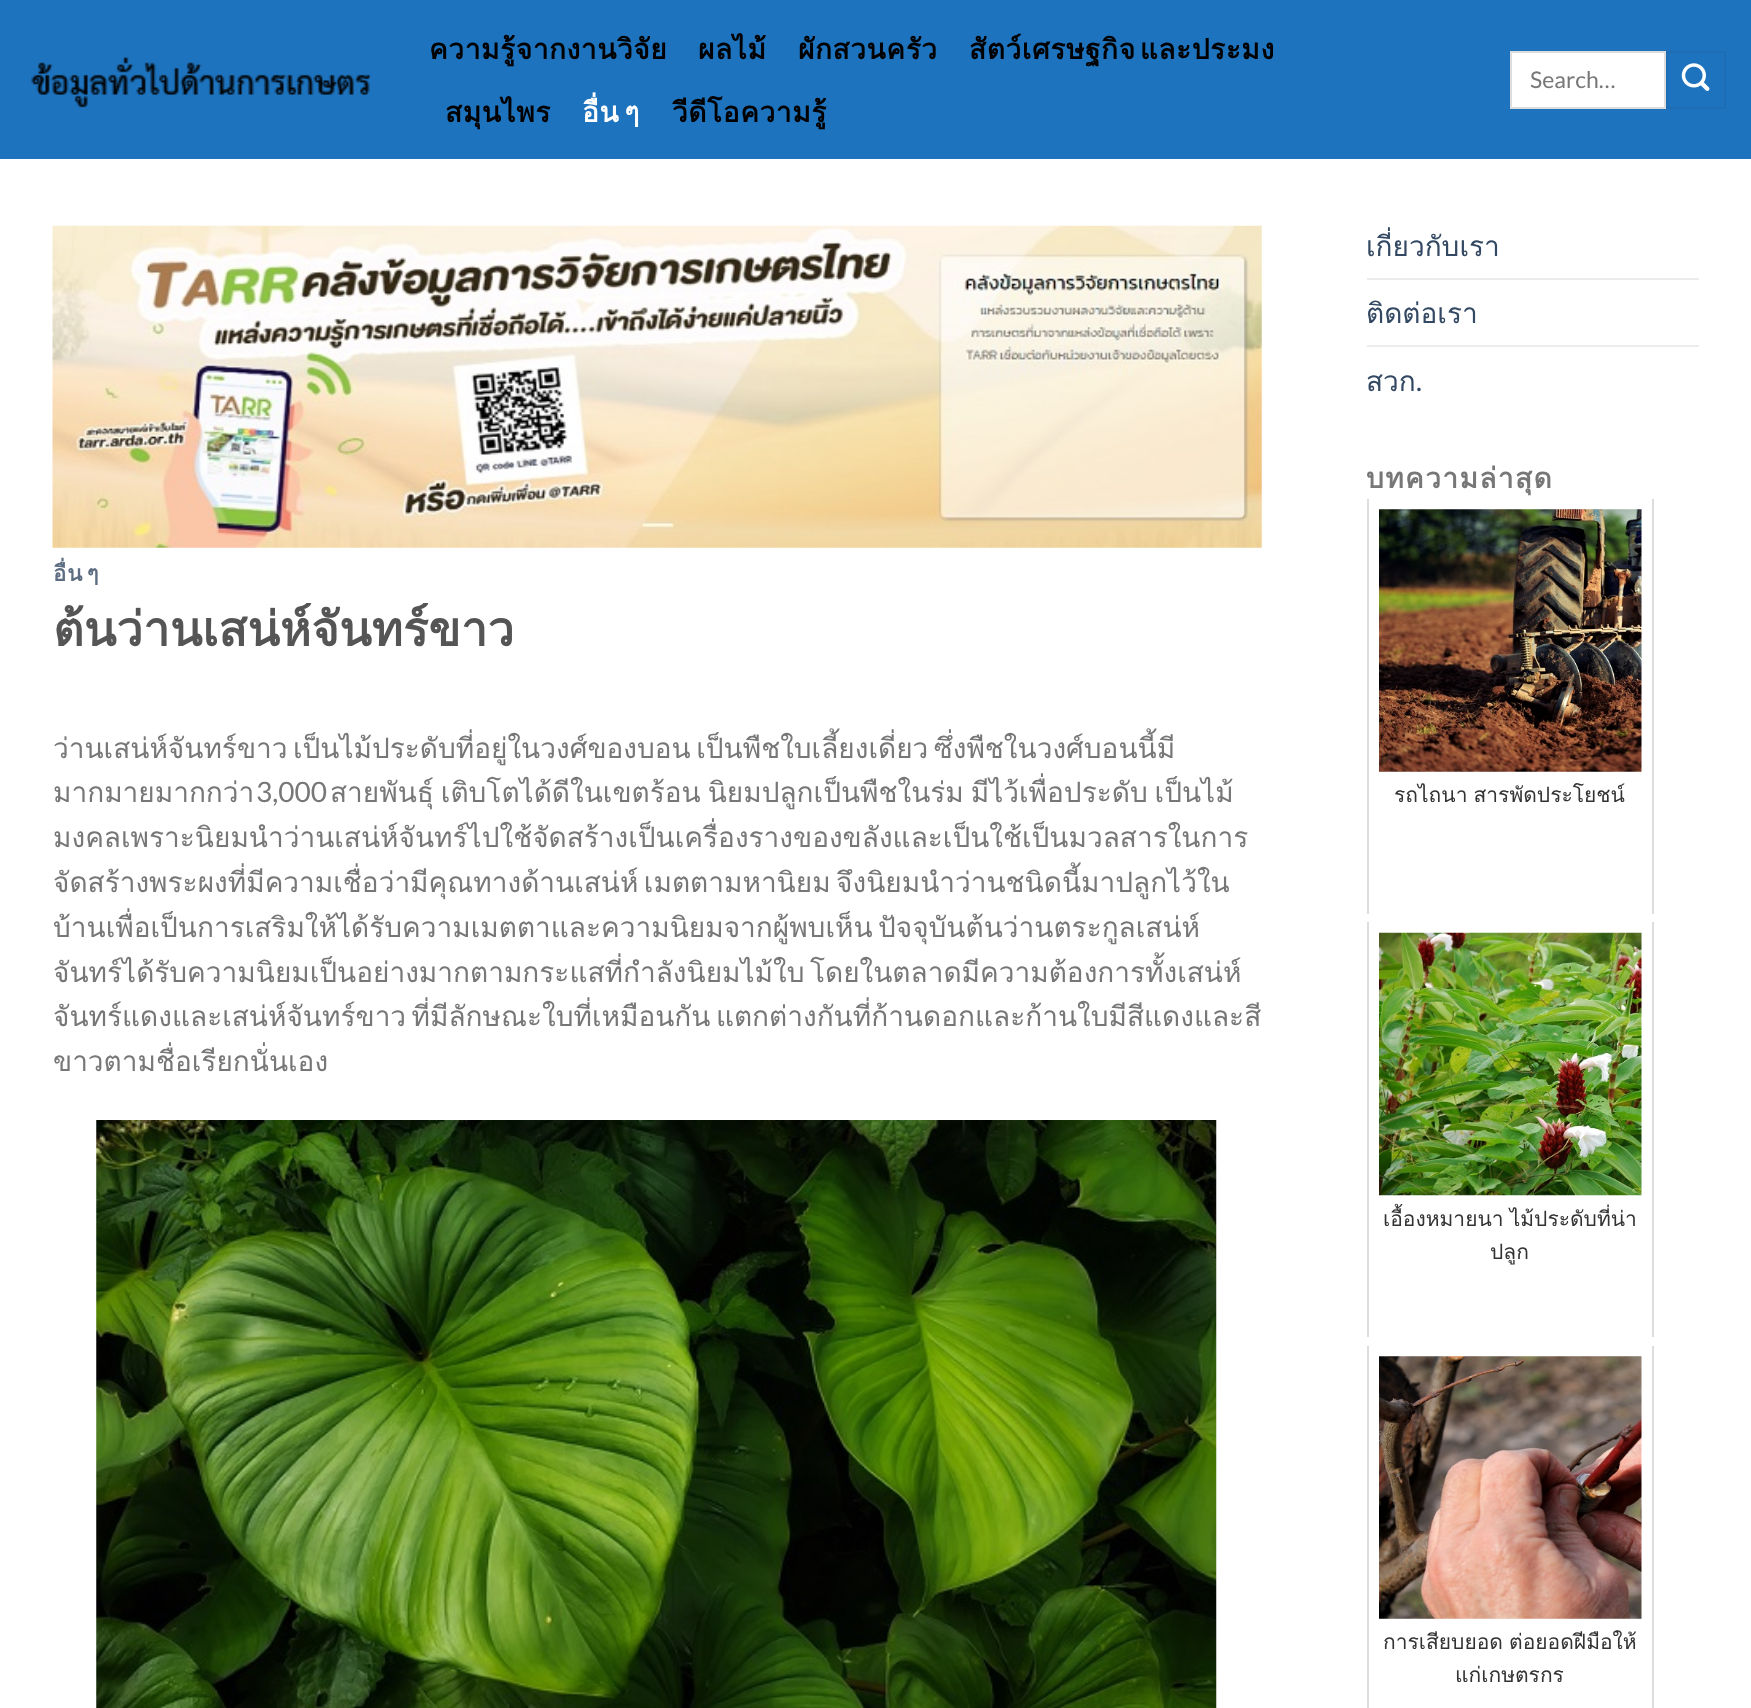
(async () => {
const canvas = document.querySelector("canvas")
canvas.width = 1751
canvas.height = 1708
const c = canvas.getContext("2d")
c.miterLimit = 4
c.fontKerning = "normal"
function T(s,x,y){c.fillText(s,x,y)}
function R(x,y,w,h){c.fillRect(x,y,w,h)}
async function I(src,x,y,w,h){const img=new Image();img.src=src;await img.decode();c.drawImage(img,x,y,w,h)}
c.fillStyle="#fff"
R(0,0,1751,1708)
c.fillStyle="#1e73be"
R(0,0,1751,159)
await I("1.png",31,57,341,51)
c.letterSpacing="0.6px"
c.font="bold 28px Loma"
c.fillStyle="#000"
T("ความรู้จากงานวิจัย",429,59)
T("ผลไม้",698,59)
T("ผักสวนครัว",798,59)
c.wordSpacing="-6px"
T("สัตว์เศรษฐกิจ และประมง",969,59)
c.wordSpacing="0px"
T("สมุนไพร",445,122)
c.wordSpacing="-5px"
c.fillStyle="#fff"
T("อื่น ๆ",582,122)
c.wordSpacing="0px"
c.fillStyle="#000"
T("วีดีโอความรู้",672,122)
c.fillStyle="#fff"
c.beginPath()
c.rect(1511,52,154,56)
c.fill()
c.strokeStyle="#ddd"
c.lineWidth=2
c.stroke()
c.letterSpacing="0px"
c.font="23px Lato"
c.fillStyle="#777"
T("Search…",1530,88)
c.strokeStyle="#1d6db5"
c.strokeRect(1667,52,58,56)
await I("2.png",1681,63,29,28)
await I("3.png",52,225,1210,323)
c.letterSpacing="1px"
c.wordSpacing="-5px"
c.font="bold 22px Loma"
c.fillStyle="#5c6d81"
T("อื่น ๆ",53,581)
c.letterSpacing="0px"
c.wordSpacing="0px"
c.font="bold 47.5px Loma"
c.fillStyle="#555"
T("ต้นว่านเสน่ห์จันทร์ขาว",53,646)
c.wordSpacing="-4px"
c.font="28px Loma"
c.fillStyle="#777"
T("ว่านเสน่ห์จันทร์ขาว เป็นไม้ประดับที่อยู่ในวงศ์ของบอน เป็นพืชใบเลี้ยงเดี่ยว ซึ่งพืชในวงศ์บอนนี้มี",53,758)
c.wordSpacing="0px"
T("มากมายมากกว่า",53,802)
c.font="28px Lato"
T("3,000",256,802)
c.wordSpacing="-2.5px"
c.font="28px Loma"
T("สายพันธุ์ เติบโตได้ดีในเขตร้อน นิยมปลูกเป็นพืชในร่ม มีไว้เพื่อประดับ เป็นไม้",330,802)
c.wordSpacing="0px"
T("มงคลเพราะนิยมนำว่านเสน่ห์จันทร์ไปใช้จัดสร้างเป็นเครื่องรางของขลังและเป็นใช้เป็นมวลสารในการ",53,847)
c.wordSpacing="-4px"
T("จัดสร้างพระผงที่มีความเชื่อว่ามีคุณทางด้านเสน่ห์ เมตตามหานิยม จึงนิยมนำว่านชนิดนี้มาปลูกไว้ใน",53,892)
T("บ้านเพื่อเป็นการเสริมให้ได้รับความเมตตาและความนิยมจากผู้พบเห็น ปัจจุบันต้นว่านตระกูลเสน่ห์",53,937)
T("จันทร์ได้รับความนิยมเป็นอย่างมากตามกระแสที่กำลังนิยมไม้ใบ โดยในตลาดมีความต้องการทั้งเสน่ห์",53,982)
T("จันทร์แดงและเสน่ห์จันทร์ขาว ที่มีลักษณะใบที่เหมือนกัน แตกต่างกันที่ก้านดอกและก้านใบมีสีแดงและสี",53,1026)
c.wordSpacing="0px"
T("ขาวตามชื่อเรียกนั่นเอง",53,1071)
await I("4.png",96,1120,1121,588)
c.fillStyle="#334862"
T("เกี่ยวกับเรา",1366,256)
c.fillStyle="#ececec"
R(1367,278,332,2)
c.fillStyle="#334862"
T("ติดต่อเรา",1366,323)
c.fillStyle="#ececec"
R(1367,345,332,2)
c.fillStyle="#334862"
T("สวก",1366,391)
c.font="28px Lato"
T(".",1416,391)
c.letterSpacing="1.4px"
c.font="bold 28px Loma"
c.fillStyle="#777"
T("บทความล่าสุด",1366,488)
c.fillStyle="#ddd"
R(1652,499,2,415)
R(1367,499,2,415)
await I("5.png",1379,509,263,263)
c.letterSpacing="0px"
c.wordSpacing="-1px"
c.font="21px Loma"
c.fillStyle="#333"
T("รถไถนา สารพัดประโยชน์",1394,802)
c.fillStyle="#ddd"
R(1652,922,2,415)
R(1367,922,2,415)
await I("6.png",1379,932,263,264)
c.fillStyle="#333"
T("เอื้องหมายนา ไม้ประดับที่น่า",1383,1226)
c.wordSpacing="0px"
T("ปลูก",1490,1259)
c.fillStyle="#ddd"
R(1652,1346,2,362)
R(1367,1346,2,362)
await I("7.png",1379,1356,263,263)
c.wordSpacing="-1px"
c.fillStyle="#333"
T("การเสียบยอด ต่อยอดฝีมือให้",1383,1649)
c.wordSpacing="0px"
T("แก่เกษตรกร",1455,1682)
})()
